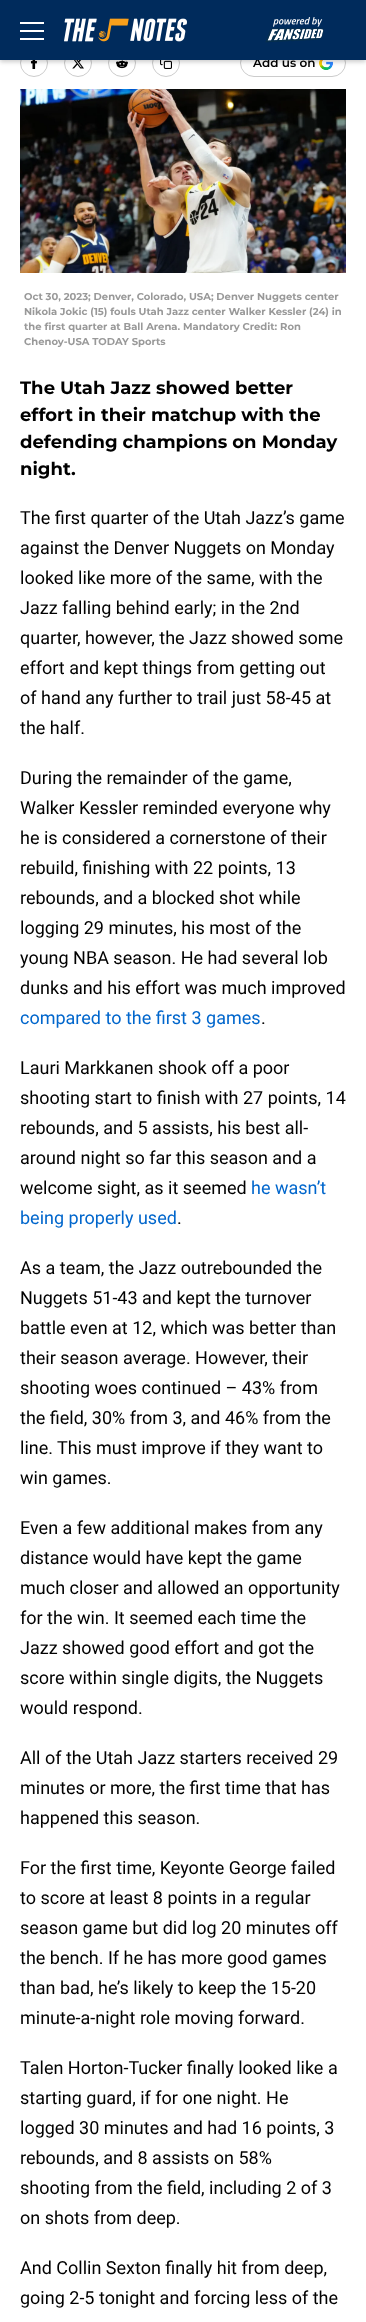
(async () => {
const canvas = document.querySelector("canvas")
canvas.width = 366
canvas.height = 2322
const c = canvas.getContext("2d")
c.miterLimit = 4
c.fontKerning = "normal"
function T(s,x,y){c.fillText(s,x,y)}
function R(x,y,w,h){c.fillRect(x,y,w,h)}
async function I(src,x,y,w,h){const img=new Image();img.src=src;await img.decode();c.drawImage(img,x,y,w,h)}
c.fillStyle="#fff"
R(0,0,366,2322)
c.beginPath()
c.arc(34,63,13.5,0,7)
c.strokeStyle="#ccc"
c.stroke()
await I("3.png",30,60,7,9)
c.beginPath()
c.arc(78,63,13.5,0,7)
c.stroke()
await I("4.png",72,60,12,9)
c.beginPath()
c.arc(122,63,13.5,0,7)
c.stroke()
await I("5.png",116,60,12,9)
c.beginPath()
c.arc(166,63,13.5,0,7)
c.stroke()
await I("6.png",160,60,12,9)
c.beginPath()
c.roundRect(240.5,49.5,105,27,13.5)
c.stroke()
await I("7.png",319,60,14,10)
c.fillStyle="#00000033"
c.filter="blur(2px)"
c.beginPath()
c.rect(0,2,366,60)
c.fill()
c.filter="none"
c.font="100 12px Montserrat"
c.fillStyle="#000"
T("Add us on",253,67)
c.fillStyle="#002b5c"
R(0,0,366,60)
c.fillStyle="#fff"
R(20,22,24,2)
R(20,30,24,2)
R(20,38,24,2)
await I("1.png",64,18,123,24)
await I("2.png",265,17,59,26)
await I("8.png",20,89,326,184)
c.font="100 10px 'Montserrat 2'"
c.fillStyle="#999"
T("Oct 30, 2023; Denver, Colorado, USA; Denver Nuggets center",24,300)
T("Nikola Jokic (15) fouls Utah Jazz center Walker Kessler (24) in",24,315)
T("the first quarter at Ball Arena. Mandatory Credit: Ron",24,330)
T("Chenoy-USA TODAY Sports",24,345)
c.font="100 18px 'Montserrat 2'"
c.fillStyle="#000"
T("The Utah Jazz showed better",20,394)
T("effort in their matchup with the",20,421)
T("defending champions on Monday",20,448)
T("night.",20,475)
c.font="18px Roboto"
T("The first quarter of the Utah Jazz’s game",20,524)
T("against the Denver Nuggets on Monday",20,554)
T("looked like more of the same, with the",20,584)
T("Jazz falling behind early; in the 2nd",20,614)
T("quarter, however, the Jazz showed some",20,644)
T("effort and kept things from getting out",20,674)
T("of hand any further to trail just 58-45 at",20,704)
T("the half.",20,734)
T("During the remainder of the game,",20,784)
T("Walker Kessler reminded everyone why",20,814)
T("he is considered a cornerstone of their",20,844)
T("rebuild, finishing with 22 points, 13",20,874)
T("rebounds, and a blocked shot while",20,904)
T("logging 29 minutes, his most of the",20,934)
T("young NBA season. He had several lob",20,964)
T("dunks and his effort was much improved",20,994)
c.fillStyle="#06c"
T("compared to the first 3 games",20,1024)
c.fillStyle="#000"
T(".",261,1024)
T("Lauri Markkanen shook off a poor",20,1074)
T("shooting start to finish with 27 points, 14",20,1104)
T("rebounds, and 5 assists, his best all-",20,1134)
T("around night so far this season and a",20,1164)
T("welcome sight, as it seemed",20,1194)
c.fillStyle="#06c"
T("he wasn’t",251,1194)
T("being properly used",20,1224)
c.fillStyle="#000"
T(".",177,1224)
T("As a team, the Jazz outrebounded the",20,1274)
T("Nuggets 51-43 and kept the turnover",20,1304)
T("battle even at 12, which was better than",20,1334)
T("their season average. However, their",20,1364)
T("shooting woes continued – 43% from",20,1394)
T("the field, 30% from 3, and 46% from the",20,1424)
T("line. This must improve if they want to",20,1454)
T("win games.",20,1484)
T("Even a few additional makes from any",20,1534)
T("distance would have kept the game",20,1564)
T("much closer and allowed an opportunity",20,1594)
T("for the win. It seemed each time the",20,1624)
T("Jazz showed good effort and got the",20,1654)
T("score within single digits, the Nuggets",20,1684)
T("would respond.",20,1714)
T("All of the Utah Jazz starters received 29",20,1764)
T("minutes or more, the first time that has",20,1794)
T("happened this season.",20,1824)
T("For the first time, Keyonte George failed",20,1874)
T("to score at least 8 points in a regular",20,1904)
T("season game but did log 20 minutes off",20,1934)
T("the bench. If he has more good games",20,1964)
T("than bad, he’s likely to keep the 15-20",20,1994)
T("minute-a-night role moving forward.",20,2024)
T("Talen Horton-Tucker finally looked like a",20,2074)
T("starting guard, if for one night. He",20,2104)
T("logged 30 minutes and had 16 points, 3",20,2134)
T("rebounds, and 8 assists on 58%",20,2164)
T("shooting from the field, including 2 of 3",20,2194)
T("on shots from deep.",20,2224)
T("And Collin Sexton finally hit from deep,",20,2274)
T("going 2-5 tonight and forcing less of the",20,2304)
})()
